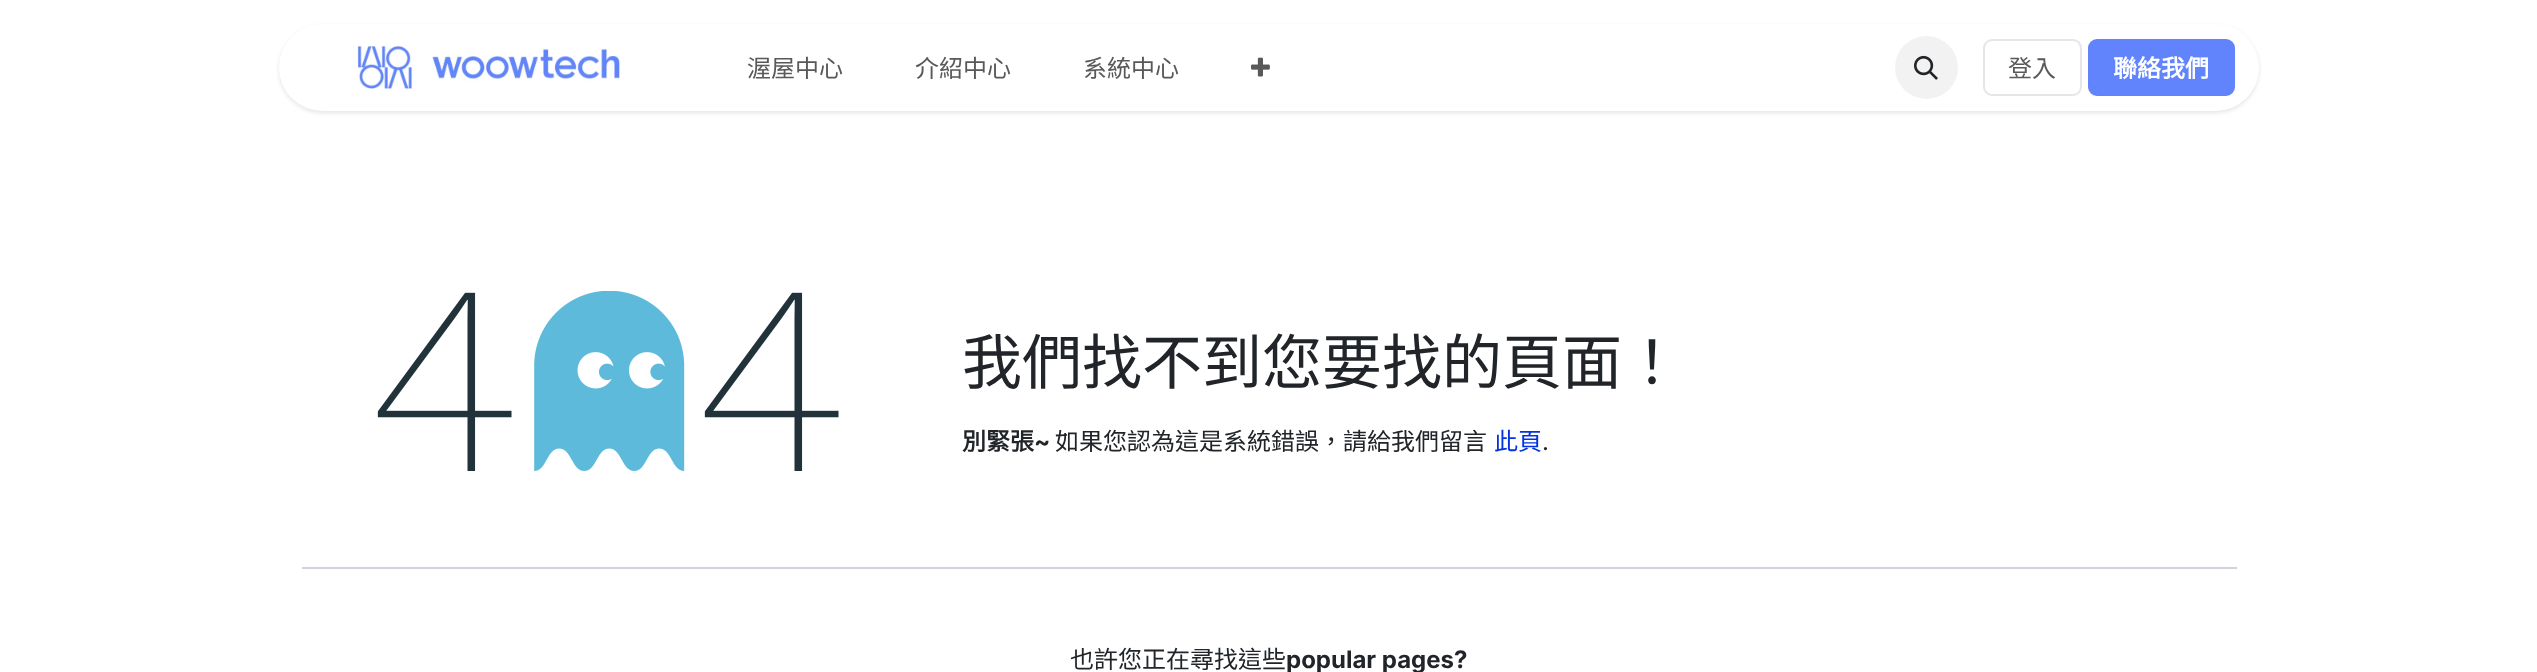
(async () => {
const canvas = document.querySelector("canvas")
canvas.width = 2537
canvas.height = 672
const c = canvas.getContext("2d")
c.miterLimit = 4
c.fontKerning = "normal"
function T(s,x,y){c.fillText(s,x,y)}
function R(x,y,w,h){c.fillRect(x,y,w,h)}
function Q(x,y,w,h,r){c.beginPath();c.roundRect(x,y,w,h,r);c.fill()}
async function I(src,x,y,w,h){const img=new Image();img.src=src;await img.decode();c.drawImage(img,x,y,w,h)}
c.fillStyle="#fff"
R(0,0,2537,672)
c.fillStyle="#0000001a"
c.filter="blur(2px)"
c.beginPath()
c.roundRect(279,26,1980,87,43.5)
c.fill()
c.filter="none"
c.fillStyle="#fff"
Q(279,24,1980,87,43.5)
await I("1.png",357,46,263,43)
c.font="24px Noto Sans CJK TC"
c.fillStyle="#595959"
T("渥屋中心",747,77)
T("介紹中心",915,77)
T("系統中心",1083,77)
await I("2.png",1251,57,19,20)
c.fillStyle="#f2f2f2"
c.beginPath()
c.arc(1926.5,67.5,31.5,0,7)
c.fill()
await I("3.png",1914,55,24,25)
c.beginPath()
c.roundRect(1984,40,97,55,8)
c.strokeStyle="#e6e6e6"
c.lineWidth=2
c.stroke()
c.fillStyle="#595959"
T("登入",2008,77)
c.fillStyle="#6184fd"
c.beginPath()
c.roundRect(2089,40,145,55,8)
c.fill()
c.strokeStyle="#6184fd"
c.stroke()
c.font="bold 24px Noto Sans CJK TC"
c.fillStyle="#fff"
T("聯絡我們",2113,77)
await I("4.png",377,291,462,180)
c.font="60px Noto Sans CJK TC"
c.fillStyle="#212529"
T("我們找不到您要找的頁面！",962,384)
c.font="bold 24px Noto Sans CJK TC"
T("別緊張",962,450)
c.font="bold 24px Inter"
T("~",1034,450)
c.font="24px Noto Sans CJK TC"
T("如果您認為這是系統錯誤，請給我們留言",1055,450)
c.fillStyle="#0333dc"
T("此頁",1494,450)
c.font="24px Inter"
c.fillStyle="#212529"
T(".",1542,450)
c.fillStyle="#ced4da"
R(302,567,1935,2)
c.font="24px Noto Sans CJK TC"
c.fillStyle="#212529"
T("也許您正在尋找這些",1070,668)
c.font="bold 24px Inter"
T("popular pages?",1286,668)
})()
